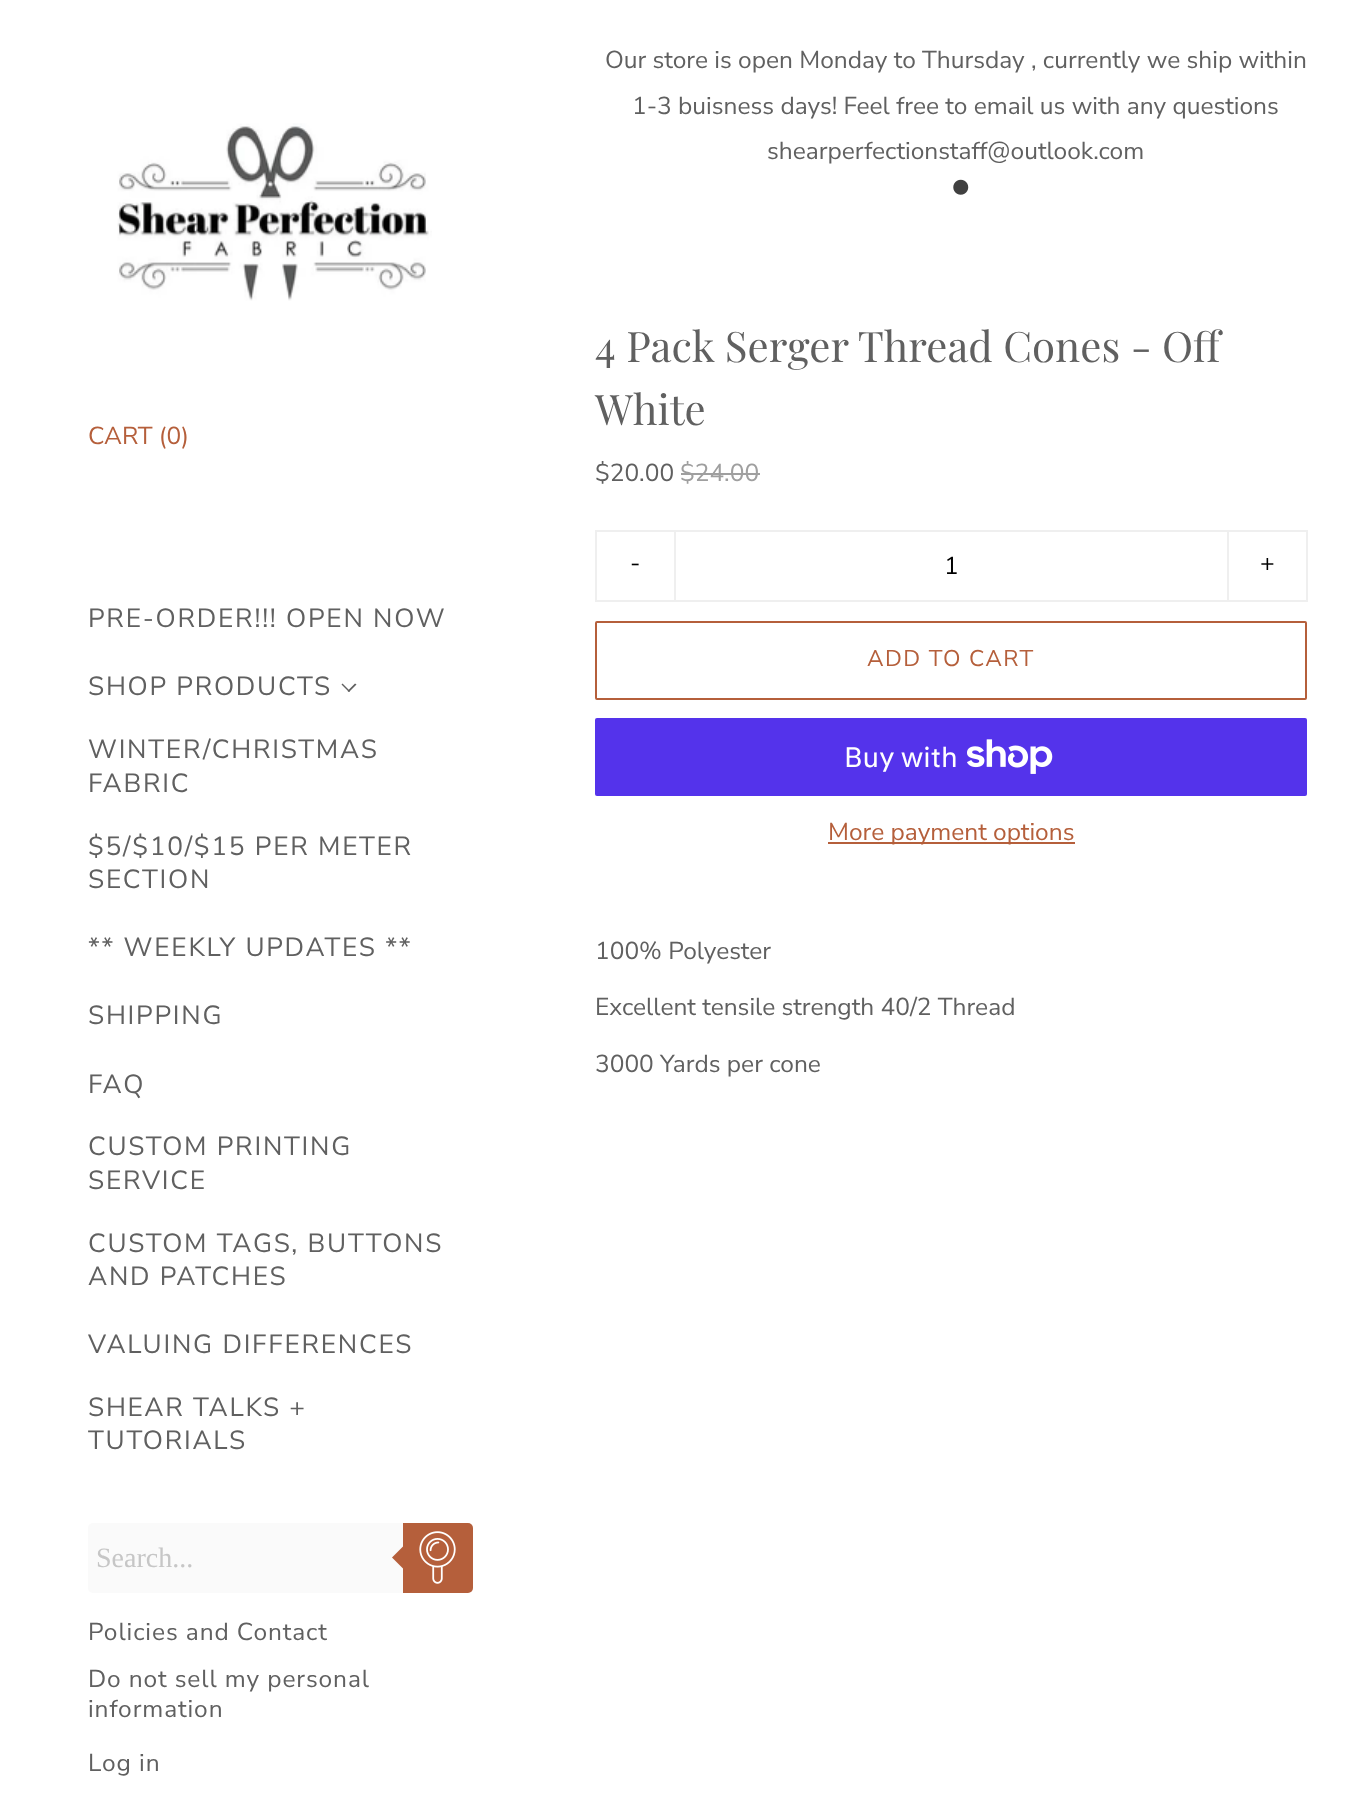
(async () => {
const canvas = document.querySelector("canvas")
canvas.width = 1367
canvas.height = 1811
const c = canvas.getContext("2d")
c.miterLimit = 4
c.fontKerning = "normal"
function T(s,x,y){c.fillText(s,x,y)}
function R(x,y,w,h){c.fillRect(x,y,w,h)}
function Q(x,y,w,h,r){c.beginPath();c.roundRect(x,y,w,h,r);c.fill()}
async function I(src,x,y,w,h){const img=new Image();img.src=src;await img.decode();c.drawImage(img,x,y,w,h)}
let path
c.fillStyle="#fff"
R(0,0,1367,1811)
c.font="24.5px Nunito Sans"
c.fillStyle="#606060"
T("Our store is open Monday to Thursday , currently we ship within",605,68)
T("1-3 buisness days! Feel free to email us with any questions",632,114)
T("shearperfectionstaff@outlook.com",767,159)
await I("1.png",117,123,315,178)
c.fillStyle="#b55f3b"
T("CART (0)",88,444)
c.letterSpacing="1.75px"
c.font="26.25px Nunito Sans"
c.fillStyle="#606060"
T("PRE-ORDER!!! OPEN NOW",88,627)
T("SHOP PRODUCTS",88,695)
path = new Path2D("M356.5 684.5l-7.5 7.5l-1.5-1l7.5-7.5z")
c.fill(path)
path = new Path2D("M350 691l-1 1l-7.5-7.5l1-1z")
c.fill(path)
T("WINTER/CHRISTMAS",88,758)
T("FABRIC",88,792)
T("$5/$10/$15 PER METER",88,855)
T("SECTION",88,888)
T("** WEEKLY UPDATES **",88,956)
T("SHIPPING",88,1024)
T("FAQ",88,1093)
T("CUSTOM PRINTING",88,1155)
T("SERVICE",88,1189)
T("CUSTOM TAGS, BUTTONS",88,1252)
T("AND PATCHES",88,1285)
T("VALUING DIFFERENCES",88,1353)
T("SHEAR TALKS +",88,1416)
T("TUTORIALS",88,1449)
c.fillStyle="#fafafa"
c.beginPath()
c.roundRect(88,1523,315,70,[5,0,0,5])
c.fill()
c.letterSpacing="0px"
c.font="28px Liberation Serif"
c.fillStyle="#c6c6c6"
T("Search...",96,1567)
c.fillStyle="#b55f3b"
c.beginPath()
c.roundRect(403,1523,70,70,[0,5,5,0])
c.fill()
path = new Path2D("M406 1543.5v28l-14-14z")
c.fill(path)
await I("2.png",419,1531,37,53)
c.letterSpacing="0.9px"
c.font="24.5px Nunito Sans"
c.fillStyle="#606060"
T("Policies and Contact",88,1640)
T("Do not sell my personal",88,1687)
T("information",88,1717)
T("Log in",88,1771)
await I("3.png",953,179,16,16)
c.letterSpacing="0px"
c.font="42px Playfair Display"
T("4 Pack Serger Thread Cones - Off",595,362)
T("White",595,425)
c.font="24.5px Nunito Sans"
T("$20.00",595,481)
c.fillStyle="#9f9f9f"
T("$24.00",680,481)
R(681,473,79,2)
c.fillStyle="#efefef"
R(595,530,79,2)
R(595,600,79,2)
R(595,530,2,72)
c.fillStyle="#000"
T("-",630,571)
c.strokeStyle="#efefef"
c.lineWidth=2
c.strokeRect(675,531,553,70)
T("1",944,574)
c.fillStyle="#efefef"
R(1229,530,78,2)
R(1306,530,2,72)
R(1229,600,78,2)
c.fillStyle="#000"
T("+",1260,571)
c.beginPath()
c.roundRect(596,622,710,77,1)
c.strokeStyle="#b55f3b"
c.stroke()
c.letterSpacing="1.4px"
c.font="22.75px Nunito Sans"
c.fillStyle="#b55f3b"
T("ADD TO CART",867,666)
c.fillStyle="#5433eb"
Q(595,718,712,78,2)
c.letterSpacing="0px"
c.font="28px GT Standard"
c.fillStyle="#fff"
T("Buy with",844,767)
await I("4.png",967,739,86,35)
c.fillStyle="#b55f3b"
R(828,842,247,2)
c.font="24.5px Nunito Sans"
T("More payment options",828,840)
c.fillStyle="#606060"
T("100% Polyester",595,959)
T("Excellent tensile strength 40/2 Thread",595,1015)
T("3000 Yards per cone",595,1072)
})()
